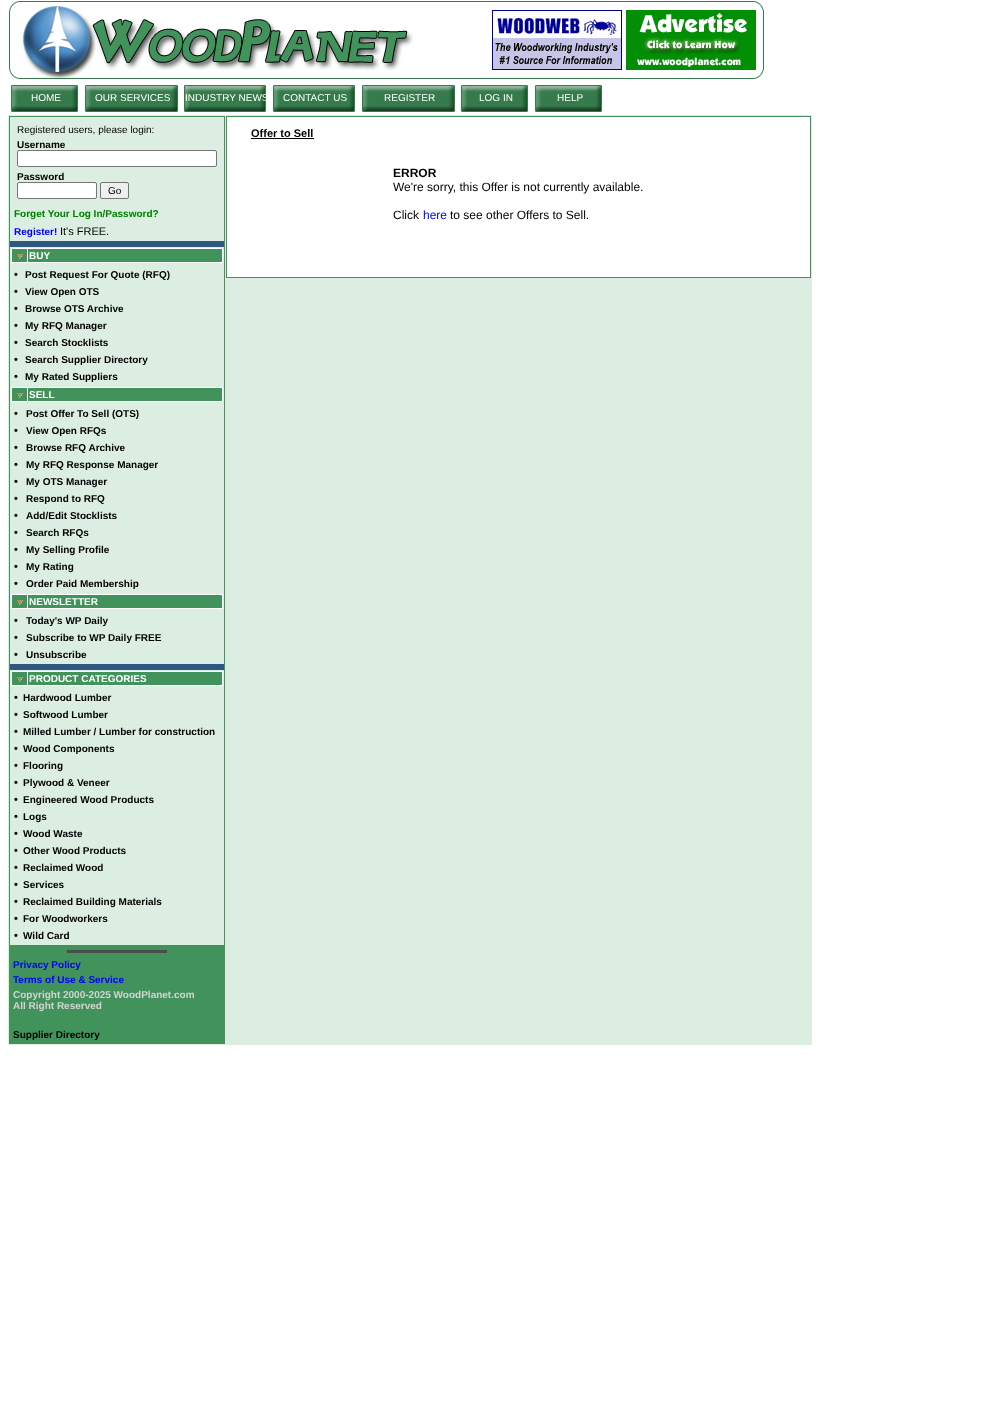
(async () => {
const canvas = document.querySelector("canvas")
canvas.width = 1001
canvas.height = 1408
const c = canvas.getContext("2d")
c.miterLimit = 4
c.fontKerning = "normal"
function T(s,x,y){c.fillText(s,x,y)}
function R(x,y,w,h){c.fillRect(x,y,w,h)}
async function I(src,x,y,w,h){const img=new Image();img.src=src;await img.decode();c.drawImage(img,x,y,w,h)}
c.fillStyle="#fff"
R(0,0,1001,1408)
await I("1.png",9,1,755,79)
await I("2.png",492,10,130,60)
await I("3.png",626,10,130,60)
await I("4.png",11,85,67,27)
c.font="10px Liberation Sans"
T("HOME",31,101)
await I("5.png",85,85,93,27)
T("OUR SERVICES",95,101)
await I("6.png",184,85,82,27)
T("INDUSTRY NEWS",185,101)
await I("6.png",273,85,82,27)
T("CONTACT US",283,101)
await I("5.png",362,85,93,27)
T("REGISTER",384,101)
await I("4.png",461,85,67,27)
T("LOG IN",479,101)
await I("4.png",535,85,67,27)
T("HELP",557,101)
c.fillStyle="#dbeee1"
R(8,115,804,930)
c.fillStyle="#41935b"
R(9,116,216,928)
c.fillStyle="#dbeee1"
R(10,117,214,124)
c.fillStyle="#000"
T("Registered users, please login:",17,133)
c.font="bold 10px Liberation Sans"
T("Username",17,148)
c.fillStyle="#fff"
c.beginPath()
c.roundRect(17.5,150.5,199,16,1.5)
c.fill()
c.strokeStyle="#767676"
c.stroke()
c.fillStyle="#000"
T("Password",17,180)
c.fillStyle="#fff"
c.beginPath()
c.roundRect(17.5,182.5,79,16,1.5)
c.fill()
c.stroke()
c.fillStyle="#efefef"
c.beginPath()
c.roundRect(100.5,182.5,28,16,1.5)
c.fill()
c.stroke()
c.font="10px Liberation Sans"
c.fillStyle="#000"
T("Go",108,194)
c.font="bold 10px Liberation Sans"
c.fillStyle="#008000"
T("Forget Your Log In/Password?",14,217)
c.fillStyle="#00f"
T("Register!",14,235)
c.font="11px Liberation Sans"
c.fillStyle="#000"
T("It's FREE.",60,235)
c.fillStyle="#2d5881"
R(10,241,214,6)
c.fillStyle="#dbeee1"
R(10,247,214,417)
c.fillStyle="#fff"
R(11,248,212,15)
c.fillStyle="#41935b"
R(12,249,15,13)
await I("7.png",17,254,6,5)
R(28,249,194,13)
c.font="bold 10px Liberation Sans"
c.fillStyle="#fff"
T("BUY",29,259)
c.font="bold 11px Liberation Sans"
c.fillStyle="#000"
T("•",14,278)
c.font="bold 10px Liberation Sans"
T("Post Request For Quote (RFQ)",25,278)
c.font="bold 11px Liberation Sans"
T("•",14,295)
c.font="bold 10px Liberation Sans"
T("View Open OTS",25,295)
c.font="bold 11px Liberation Sans"
T("•",14,312)
c.font="bold 10px Liberation Sans"
T("Browse OTS Archive",25,312)
c.font="bold 11px Liberation Sans"
T("•",14,329)
c.font="bold 10px Liberation Sans"
T("My RFQ Manager",25,329)
c.font="bold 11px Liberation Sans"
T("•",14,346)
c.font="bold 10px Liberation Sans"
T("Search Stocklists",25,346)
c.font="bold 11px Liberation Sans"
T("•",14,363)
c.font="bold 10px Liberation Sans"
T("Search Supplier Directory",25,363)
c.font="bold 11px Liberation Sans"
T("•",14,380)
c.font="bold 10px Liberation Sans"
T("My Rated Suppliers",25,380)
c.fillStyle="#fff"
R(11,387,212,15)
c.fillStyle="#41935b"
R(12,388,15,13)
await I("7.png",17,393,6,5)
R(28,388,194,13)
c.fillStyle="#fff"
T("SELL",29,398)
c.font="bold 11px Liberation Sans"
c.fillStyle="#000"
T("•",14,417)
c.font="bold 10px Liberation Sans"
T("Post Offer To Sell (OTS)",26,417)
c.font="bold 11px Liberation Sans"
T("•",14,434)
c.font="bold 10px Liberation Sans"
T("View Open RFQs",26,434)
c.font="bold 11px Liberation Sans"
T("•",14,451)
c.font="bold 10px Liberation Sans"
T("Browse RFQ Archive",26,451)
c.font="bold 11px Liberation Sans"
T("•",14,468)
c.font="bold 10px Liberation Sans"
T("My RFQ Response Manager",26,468)
c.font="bold 11px Liberation Sans"
T("•",14,485)
c.font="bold 10px Liberation Sans"
T("My OTS Manager",26,485)
c.font="bold 11px Liberation Sans"
T("•",14,502)
c.font="bold 10px Liberation Sans"
T("Respond to RFQ",26,502)
c.font="bold 11px Liberation Sans"
T("•",14,519)
c.font="bold 10px Liberation Sans"
T("Add/Edit Stocklists",26,519)
c.font="bold 11px Liberation Sans"
T("•",14,536)
c.font="bold 10px Liberation Sans"
T("Search RFQs",26,536)
c.font="bold 11px Liberation Sans"
T("•",14,553)
c.font="bold 10px Liberation Sans"
T("My Selling Profile",26,553)
c.font="bold 11px Liberation Sans"
T("•",14,570)
c.font="bold 10px Liberation Sans"
T("My Rating",26,570)
c.font="bold 11px Liberation Sans"
T("•",14,587)
c.font="bold 10px Liberation Sans"
T("Order Paid Membership",26,587)
c.fillStyle="#fff"
R(11,594,212,15)
c.fillStyle="#41935b"
R(12,595,15,13)
await I("7.png",17,600,6,5)
R(28,595,194,13)
c.fillStyle="#fff"
T("NEWSLETTER",29,605)
c.font="bold 11px Liberation Sans"
c.fillStyle="#000"
T("•",14,624)
c.font="bold 10px Liberation Sans"
T("Today's WP Daily",26,624)
c.font="bold 11px Liberation Sans"
T("•",14,641)
c.font="bold 10px Liberation Sans"
T("Subscribe to WP Daily FREE",26,641)
c.font="bold 11px Liberation Sans"
T("•",14,658)
c.font="bold 10px Liberation Sans"
T("Unsubscribe",26,658)
c.fillStyle="#2d5881"
R(10,664,214,6)
c.fillStyle="#dbeee1"
R(10,670,214,275)
c.fillStyle="#fff"
R(11,671,212,15)
c.fillStyle="#41935b"
R(12,672,15,13)
await I("7.png",17,677,6,5)
R(28,672,194,13)
c.fillStyle="#fff"
T("PRODUCT CATEGORIES",29,682)
c.font="bold 11px Liberation Sans"
c.fillStyle="#000"
T("•",14,701)
c.font="bold 10px Liberation Sans"
T("Hardwood Lumber",23,701)
c.font="bold 11px Liberation Sans"
T("•",14,718)
c.font="bold 10px Liberation Sans"
T("Softwood Lumber",23,718)
c.font="bold 11px Liberation Sans"
T("•",14,735)
c.font="bold 10px Liberation Sans"
T("Milled Lumber / Lumber for construction",23,735)
c.font="bold 11px Liberation Sans"
T("•",14,752)
c.font="bold 10px Liberation Sans"
T("Wood Components",23,752)
c.font="bold 11px Liberation Sans"
T("•",14,769)
c.font="bold 10px Liberation Sans"
T("Flooring",23,769)
c.font="bold 11px Liberation Sans"
T("•",14,786)
c.font="bold 10px Liberation Sans"
T("Plywood & Veneer",23,786)
c.font="bold 11px Liberation Sans"
T("•",14,803)
c.font="bold 10px Liberation Sans"
T("Engineered Wood Products",23,803)
c.font="bold 11px Liberation Sans"
T("•",14,820)
c.font="bold 10px Liberation Sans"
T("Logs",23,820)
c.font="bold 11px Liberation Sans"
T("•",14,837)
c.font="bold 10px Liberation Sans"
T("Wood Waste",23,837)
c.font="bold 11px Liberation Sans"
T("•",14,854)
c.font="bold 10px Liberation Sans"
T("Other Wood Products",23,854)
c.font="bold 11px Liberation Sans"
T("•",14,871)
c.font="bold 10px Liberation Sans"
T("Reclaimed Wood",23,871)
c.font="bold 11px Liberation Sans"
T("•",14,888)
c.font="bold 10px Liberation Sans"
T("Services",23,888)
c.font="bold 11px Liberation Sans"
T("•",14,905)
c.font="bold 10px Liberation Sans"
T("Reclaimed Building Materials",23,905)
c.font="bold 11px Liberation Sans"
T("•",14,922)
c.font="bold 10px Liberation Sans"
T("For Woodworkers",23,922)
c.font="bold 11px Liberation Sans"
T("•",14,939)
c.font="bold 10px Liberation Sans"
T("Wild Card",23,939)
c.fillStyle="#4c4c4c"
R(67,950,100,3)
c.fillStyle="#00f"
T("Privacy Policy",13,968)
T("Terms of Use & Service",13,983)
c.fillStyle="#d3d3d3"
T("Copyright 2000-2025 WoodPlanet.com",13,998)
T("All Right Reserved",13,1009)
c.fillStyle="#000"
T("Supplier Directory",13,1038)
c.fillStyle="#41935b"
R(226,116,585,162)
c.fillStyle="#fff"
R(227,117,583,160)
c.font="bold 11px Liberation Sans"
c.fillStyle="#000"
T("Offer to Sell",251,137)
R(251,138,63,1)
c.font="bold 12px Liberation Sans"
T("ERROR",393,177)
c.font="12px Liberation Sans"
T("We're sorry, this Offer is not currently available.",393,191)
T("Click",393,219)
c.fillStyle="#00f"
T("here",423,219)
c.fillStyle="#000"
T("to see other Offers to Sell.",450,219)
})()
